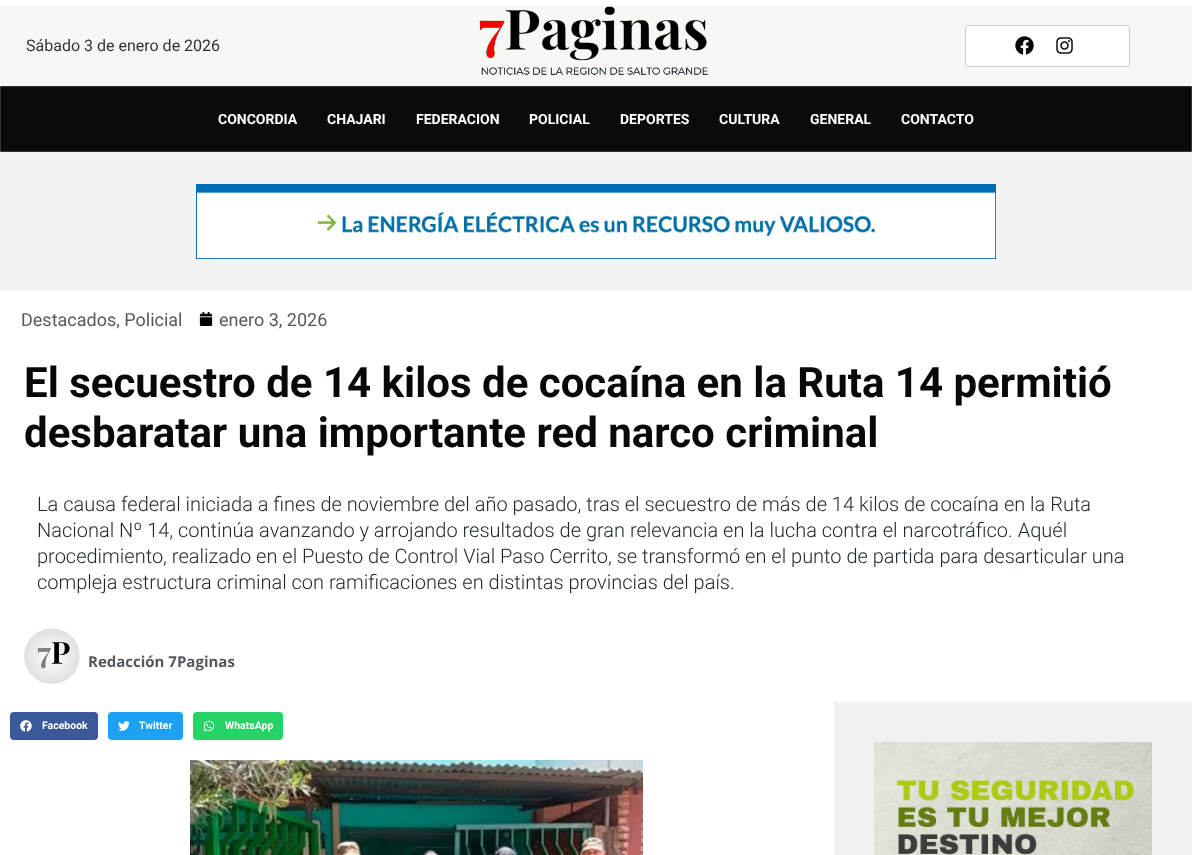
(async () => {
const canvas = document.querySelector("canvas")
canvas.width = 1192
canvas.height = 855
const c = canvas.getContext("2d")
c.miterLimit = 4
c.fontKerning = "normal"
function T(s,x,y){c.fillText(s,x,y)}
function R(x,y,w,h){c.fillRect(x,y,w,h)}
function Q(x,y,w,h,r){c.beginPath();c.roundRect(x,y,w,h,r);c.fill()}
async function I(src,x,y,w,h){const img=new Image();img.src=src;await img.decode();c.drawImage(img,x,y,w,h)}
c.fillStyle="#fff"
R(0,0,1192,855)
c.fillStyle="#f7f7f4"
R(0,6,1192,80)
c.font="16px Roboto"
c.fillStyle="#333"
T("Sábado 3 de enero de 2026",26,51)
await I("1.png",479,6,229,69)
c.fillStyle="#fff"
c.beginPath()
c.roundRect(965.5,25.5,164,41,2.5)
c.fill()
c.strokeStyle="#ccc"
c.stroke()
await I("2.png",1015,36,19,19)
await I("3.png",1056,37,17,17)
c.fillStyle="#0b0b0b"
c.beginPath()
c.rect(.5,86.5,1191,65)
c.fill()
c.strokeStyle="#333"
c.stroke()
c.font="bold 14px Roboto"
c.fillStyle="#fff"
T("CONCORDIA",218,124)
T("CHAJARI",327,124)
T("FEDERACION",416,124)
T("POLICIAL",529,124)
T("DEPORTES",620,124)
T("CULTURA",719,124)
T("GENERAL",810,124)
T("CONTACTO",901,124)
c.fillStyle="#f2f2f2"
R(0,152,1192,139)
await I("4.png",196,184,800,75)
c.font="18px Roboto"
c.fillStyle="#54595f"
T("Destacados, Policial",21,326)
await I("5.png",199,312,14,14)
T("enero 3, 2026",219,326)
c.font="bold 42px Roboto"
c.fillStyle="#080809"
T("El secuestro de 14 kilos de cocaína en la Ruta 14 permitió",24,397)
T("desbaratar una importante red narco criminal",24,447)
c.font="300 20px Roboto"
c.fillStyle="#1e252c"
T("La causa federal iniciada a fines de noviembre del año pasado, tras el secuestro de más de 14 kilos de cocaína en la Ruta",37,511)
T("Nacional Nº 14, continúa avanzando y arrojando resultados de gran relevancia en la lucha contra el narcotráfico. Aquél",37,537)
T("procedimiento, realizado en el Puesto de Control Vial Paso Cerrito, se transformó en el punto de partida para desarticular una",37,563)
T("compleja estructura criminal con ramificaciones en distintas provincias del país.",37,589)
await I("6.png",24,628,56,56)
c.font="bold 15px Open Sans"
c.fillStyle="#54595f"
T("Redacción 7Paginas",88,667)
c.fillStyle="#3b5998"
Q(10,712,88,28,4)
await I("7.png",20,720,12,12)
c.font="bold 10.5px Roboto"
c.fillStyle="#fff"
T("Facebook",42,729)
c.fillStyle="#1da1f2"
Q(108,712,75,28,4)
await I("8.png",118,721,11,10)
c.fillStyle="#fff"
T("Twitter",139,729)
c.fillStyle="#25d366"
Q(193,712,90,28,4)
await I("9.png",203,720,12,12)
c.fillStyle="#fff"
T("WhatsApp",225,729)
await I("10.png",190,760,453,95)
c.fillStyle="#f1f1f1"
R(834,702,358,153)
await I("11.png",874,742,278,113)
})()
